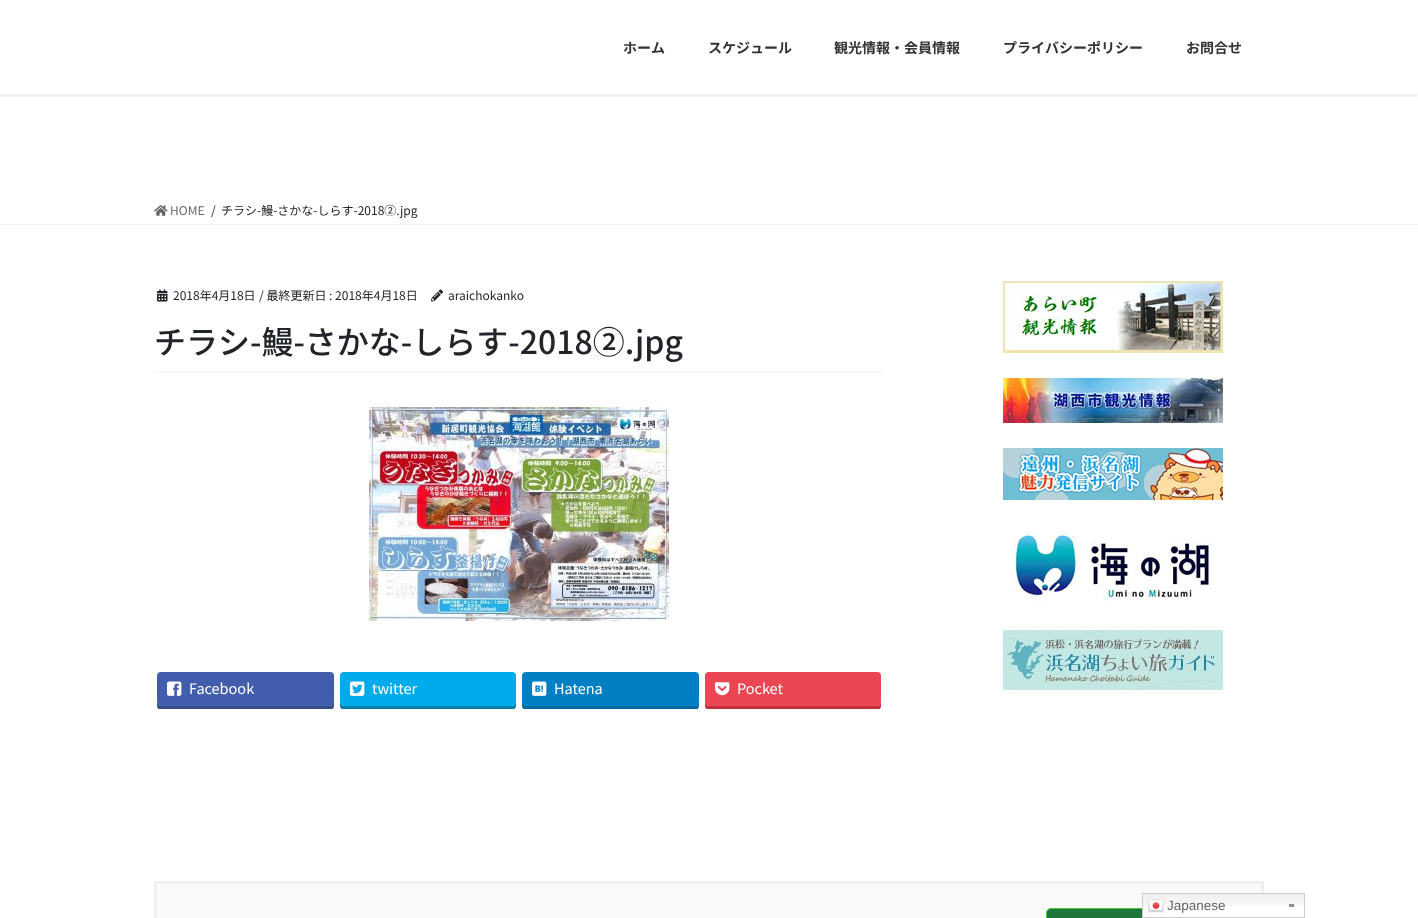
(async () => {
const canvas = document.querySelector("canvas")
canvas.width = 1418
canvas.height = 918
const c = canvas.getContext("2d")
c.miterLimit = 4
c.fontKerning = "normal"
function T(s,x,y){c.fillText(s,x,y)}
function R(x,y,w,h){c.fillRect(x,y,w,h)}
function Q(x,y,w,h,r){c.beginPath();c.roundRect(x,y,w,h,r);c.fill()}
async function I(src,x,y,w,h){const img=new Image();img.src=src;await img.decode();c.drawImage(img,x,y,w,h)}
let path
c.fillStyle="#fff"
R(0,0,1418,918)
c.save()
c.beginPath()
c.rect(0,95,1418,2)
c.clip()
c.fillStyle="#0000001a"
c.filter="blur(1.5px)"
c.beginPath()
c.rect(0,1,1418,95)
c.fill()
c.filter="none"
c.restore()
c.fillStyle="#f2f2f2"
R(0,94,1418,1)
c.font="bold 14px Noto Sans JP"
c.fillStyle="#333"
T("ホーム",623,53)
T("スケジュール",708,53)
T("観光情報・会員情報",834,53)
T("プライバシーポリシー",1003,53)
T("お問合せ",1186,53)
c.fillStyle="#f2f2f2"
R(0,224,1418,1)
await I("1.png",154,205,14,11)
c.font="12px Noto Sans JP"
c.fillStyle="#666"
T("HOME",170,215)
c.fillStyle="#212529"
T("/",211,215)
T("チラシ-鰻-さかな-しらす-2018②.jpg",221,215)
c.fillStyle="#f2f2f2"
R(154,371,730,1)
await I("2.png",157,289,11,13)
c.fillStyle="#212529"
T("2018年4月18日",173,300)
T("/ 最終更新日 : 2018年4月18日",259,300)
await I("3.png",431,289,12,13)
T("araichokanko",448,300)
c.font="500 32px Noto Sans JP"
T("チラシ-鰻-さかな-しらす-2018②.jpg",154,354)
await I("4.png",369,407,300,214)
c.save()
c.beginPath()
c.rect(154,669,730,40)
c.clip()
c.fillStyle="#344e84"
path = new Path2D("M157 702v4c0 2 2 4 4 4h169c2 0 4-2 4-4v-4c0 2-2 4-4 4h-169c-2 0-4-2-4-4z")
c.fill(path)
c.restore()
c.fillStyle="#425dab"
Q(157,672,177,34,4)
await I("5.png",167,681,15,15)
c.font="14.5px Noto Sans JP"
c.fillStyle="#fff"
T("Facebook",189,694)
c.save()
c.beginPath()
c.rect(154,669,730,40)
c.clip()
c.fillStyle="#007eaa"
path = new Path2D("M340 702v4c0 2 2 4 4 4h168c2 0 4-2 4-4v-4c0 2-2 4-4 4h-168c-2 0-4-2-4-4z")
c.fill(path)
c.restore()
c.fillStyle="#00abec"
Q(340,672,176,34,4)
await I("6.png",350,681,15,15)
c.fillStyle="#fff"
T("twitter",372,694)
c.save()
c.beginPath()
c.rect(154,669,730,40)
c.clip()
c.fillStyle="#00679f"
path = new Path2D("M522 702v4c0 2 2 4 4 4h169c2 0 4-2 4-4v-4c0 2-2 4-4 4h-169c-2 0-4-2-4-4z")
c.fill(path)
c.restore()
c.fillStyle="#007fc5"
Q(522,672,177,34,4)
await I("7.png",532,681,15,15)
c.fillStyle="#fff"
T("Hatena",554,694)
c.save()
c.beginPath()
c.rect(154,669,730,40)
c.clip()
c.fillStyle="#c1303c"
path = new Path2D("M705 702v4c0 2 2 4 4 4h168c2 0 4-2 4-4v-4c0 2-2 4-4 4h-168c-2 0-4-2-4-4z")
c.fill(path)
c.restore()
c.fillStyle="#ea4654"
Q(705,672,176,34,4)
await I("8.png",715,682,15,14)
c.fillStyle="#fff"
T("Pocket",737,694)
await I("9.png",1003,281,220,72)
await I("10.png",1003,378,220,45)
await I("11.png",1003,448,220,52)
await I("12.png",1014,529,200,74)
await I("13.png",1003,630,220,60)
c.strokeStyle="#efefef"
c.lineWidth=3
c.strokeRect(155.5,882.5,1107,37)
c.fillStyle="#f9f9f9"
c.beginPath()
c.rect(157.5,884.5,1103,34)
c.fill()
c.strokeStyle="#fcfcfc"
c.lineWidth=1
c.stroke()
c.fillStyle="#20753c"
c.beginPath()
c.roundRect(1046.5,908.5,190,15,4.5)
c.fill()
c.strokeStyle="#4ac934"
c.stroke()
c.fillStyle="#fff"
R(1143,907,121,10)
await I("14.png",1143,894,161,13)
c.fillStyle="#8f8f8f"
R(1289,904,5,3)
c.strokeStyle="#ccc"
c.strokeRect(1142.5,893.5,162,24)
await I("15.png",1148,899,16,14)
c.font="13.5px Liberation Sans"
c.fillStyle="#666"
T("Japanese",1167,910)
})()
